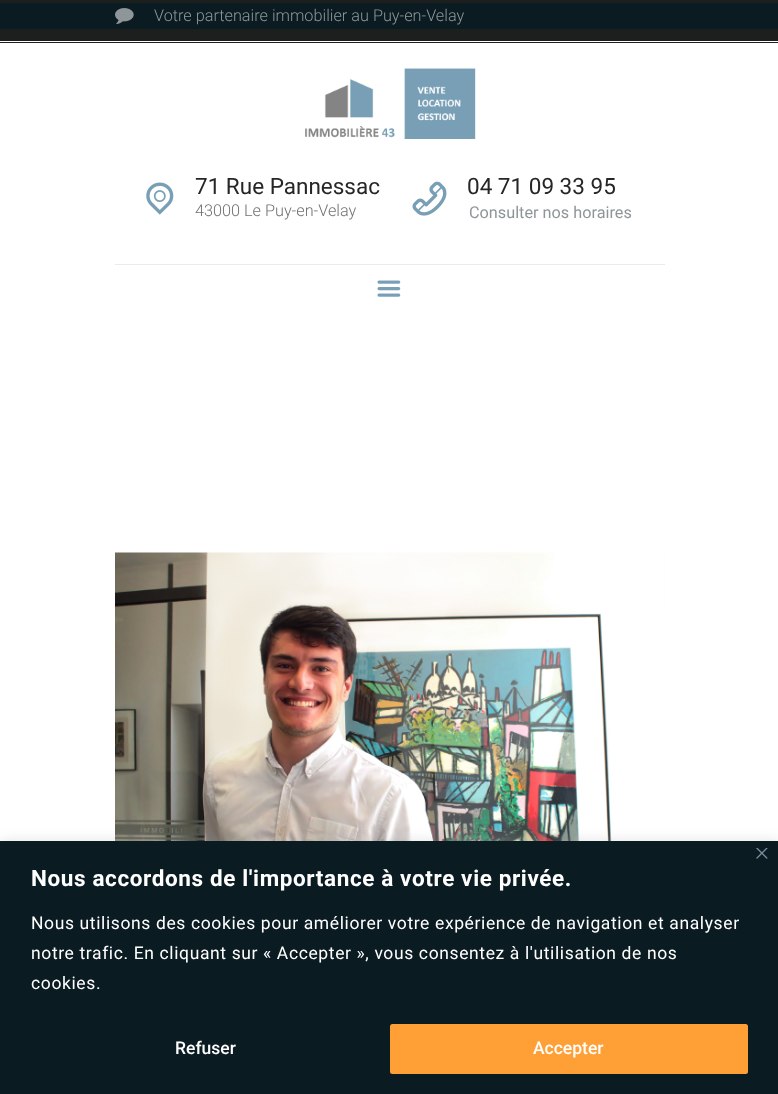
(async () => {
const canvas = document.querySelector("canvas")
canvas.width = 778
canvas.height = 1094
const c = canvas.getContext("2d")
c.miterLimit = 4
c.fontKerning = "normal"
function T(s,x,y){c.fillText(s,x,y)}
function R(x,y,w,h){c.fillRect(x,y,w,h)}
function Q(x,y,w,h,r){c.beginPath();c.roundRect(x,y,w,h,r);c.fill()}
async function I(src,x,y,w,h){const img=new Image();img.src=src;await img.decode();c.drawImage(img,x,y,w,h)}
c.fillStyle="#fff"
R(0,0,778,1094)
c.fillStyle="#1d1f1f"
R(0,0,778,43)
c.fillStyle="#fff"
R(0,41,778,1)
c.fillStyle="#0a1b22"
R(0,3,778,26)
await I("1.png",115,8,19,16)
c.font="300 16.25px Roboto"
c.fillStyle="#8f9699"
T("Votre partenaire immobilier au Puy-en-Velay",154,21)
await I("2.png",305,68,171,71)
await I("3.png",146,182,28,33)
c.font="22.5px Roboto"
c.fillStyle="#262626"
T("71 Rue Pannessac",195,194)
c.font="300 16.25px Roboto"
c.fillStyle="#727272"
T("43000 Le Puy-en-Velay",195,216)
await I("4.png",412,181,35,35)
c.font="22.5px Roboto"
c.fillStyle="#262626"
T("04 71 09 33 95",467,194)
c.font="16.25px Roboto"
c.fillStyle="#8f9699"
T("Consulter nos horaires",469,218)
c.fillStyle="#ebebeb"
R(115,264,550,1)
await I("5.png",377,280,24,17)
await I("6.png",115,552,550,289)
c.fillStyle="#acabab4d"
c.filter="blur(6px)"
c.beginPath()
c.rect(0,840,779,254)
c.fill()
c.filter="none"
c.fillStyle="#0a1b22"
R(0,841,778,253)
await I("7.png",756,848,12,11)
c.letterSpacing="0.62px"
c.font="bold 22.5px Roboto"
c.fillStyle="#fff"
T("Nous accordons de l'importance à votre vie privée.",31,886)
c.font="17.5px Roboto"
T("Nous utilisons des cookies pour améliorer votre expérience de navigation et analyser",31,929)
T("notre trafic. En cliquant sur « Accepter », vous consentez à l'utilisation de nos",31,959)
T("cookies.",31,989)
c.letterSpacing="0px"
c.font="500 17.5px Roboto"
T("Refuser",175,1054)
c.fillStyle="#ffa036"
Q(390,1024,358,50,2.5)
c.fillStyle="#fff"
T("Accepter",533,1054)
})()
